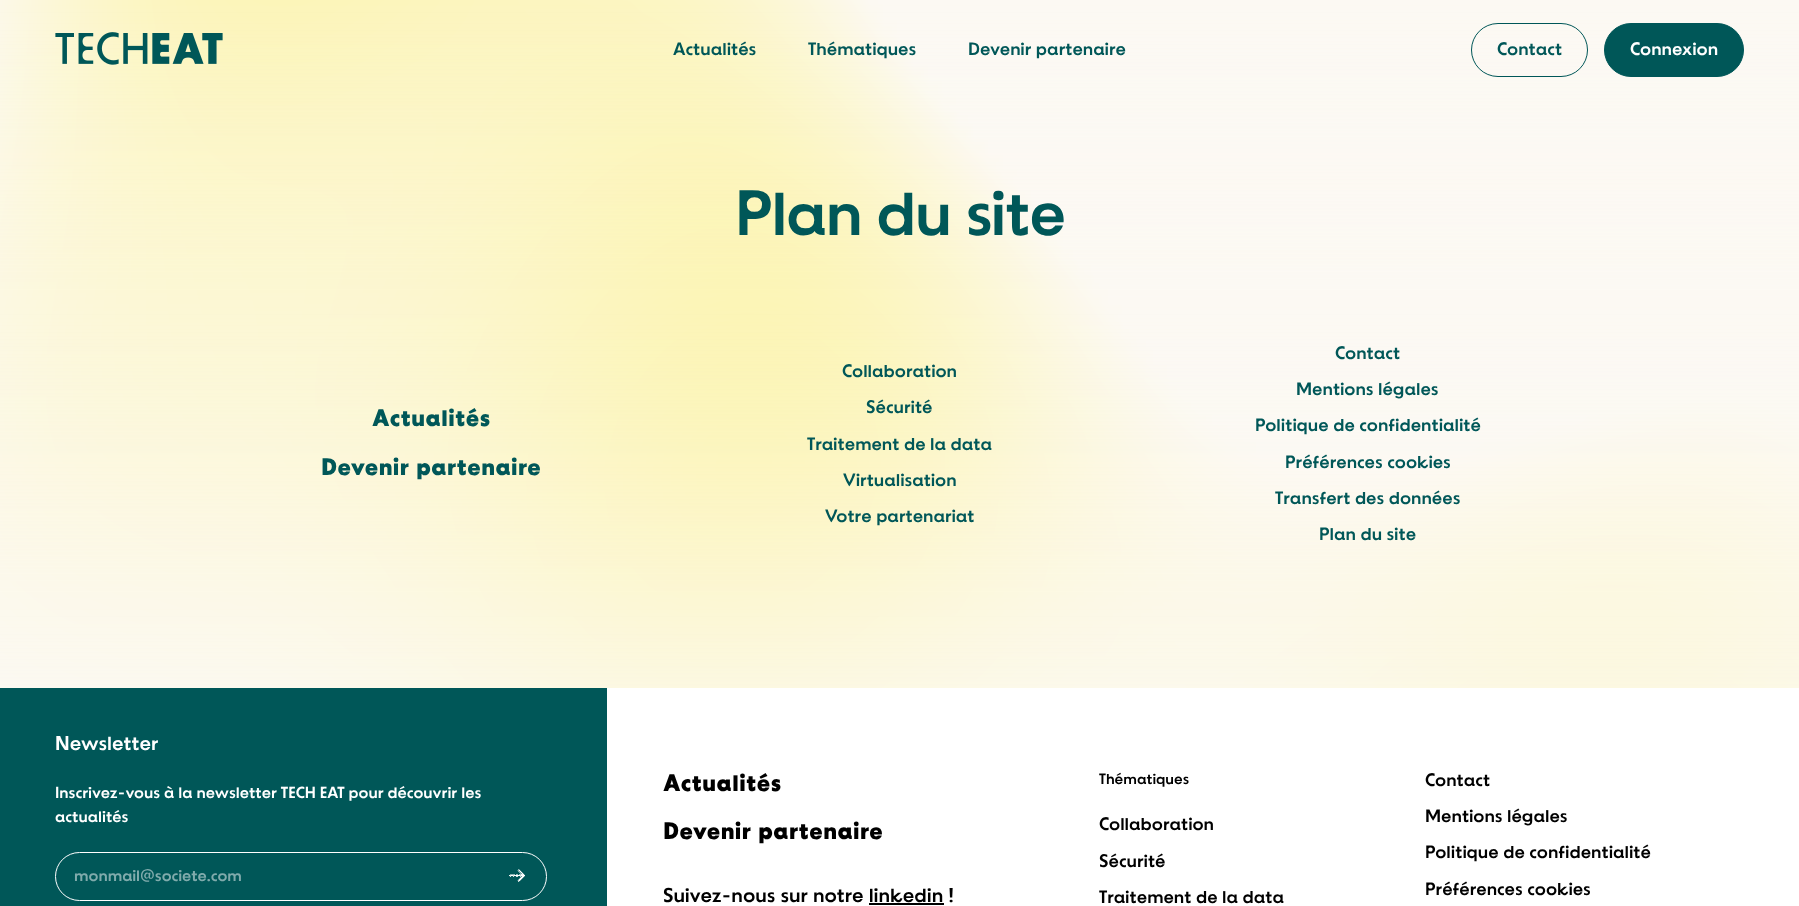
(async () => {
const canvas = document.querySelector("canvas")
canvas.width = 1799
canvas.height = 906
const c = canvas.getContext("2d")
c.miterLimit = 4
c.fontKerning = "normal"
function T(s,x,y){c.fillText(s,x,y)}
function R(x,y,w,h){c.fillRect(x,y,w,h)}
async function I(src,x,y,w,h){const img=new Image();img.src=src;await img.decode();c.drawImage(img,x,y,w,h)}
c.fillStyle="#fff"
R(0,0,1799,906)
await I("1.png",0,0,1799,688)
await I("2.png",55,32,168,33)
c.font="18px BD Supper"
c.fillStyle="#005758"
T("Actualités",673,55)
T("Thématiques",808,55)
T("Devenir partenaire",968,55)
c.beginPath()
c.roundRect(1471.5,23.5,116,53,26.5)
c.strokeStyle="#005758"
c.stroke()
T("Contact",1497,55)
c.beginPath()
c.roundRect(1604.5,23.5,139,53,26.5)
c.fill()
c.stroke()
c.fillStyle="#fff"
T("Connexion",1630,55)
c.letterSpacing="-1.25px"
c.font="64px BD Supper"
c.fillStyle="#005758"
T("Plan du site",735,235)
c.letterSpacing="0px"
c.font="bold 24px BD Supper"
T("Actualités",372,426)
T("Devenir partenaire",321,475)
c.font="18px BD Supper"
T("Collaboration",842,377)
T("Sécurité",866,413)
T("Traitement de la data",807,450)
T("Virtualisation",843,486)
T("Votre partenariat",825,522)
T("Contact",1335,359)
T("Mentions légales",1296,395)
T("Politique de confidentialité",1255,431)
T("Préférences cookies",1285,468)
T("Transfert des données",1275,504)
T("Plan du site",1319,540)
R(0,688,607,218)
c.font="20px BD Supper"
c.fillStyle="#fff"
T("Newsletter",55,750)
c.font="16px BD Supper"
T("Inscrivez-vous à la newsletter TECH EAT pour découvrir les",55,798)
T("actualités",55,822)
c.beginPath()
c.roundRect(55.5,852.5,491,48,24)
c.strokeStyle="#fff"
c.stroke()
c.fillStyle="#80abac"
T("monmail@societe.com",74,881)
await I("3.png",509,869,16,13)
c.font="bold 24px BD Supper"
c.fillStyle="#000"
T("Actualités",663,791)
T("Devenir partenaire",663,839)
c.font="20px BD Supper"
T("Suivez-nous sur notre linkedin !",663,902)
R(869,903,75,2)
c.font="15px BD Supper"
T("Thématiques",1099,784)
c.font="18px BD Supper"
T("Collaboration",1099,830)
T("Sécurité",1099,867)
T("Traitement de la data",1099,903)
T("Contact",1425,786)
T("Mentions légales",1425,822)
T("Politique de confidentialité",1425,858)
T("Préférences cookies",1425,895)
})()
